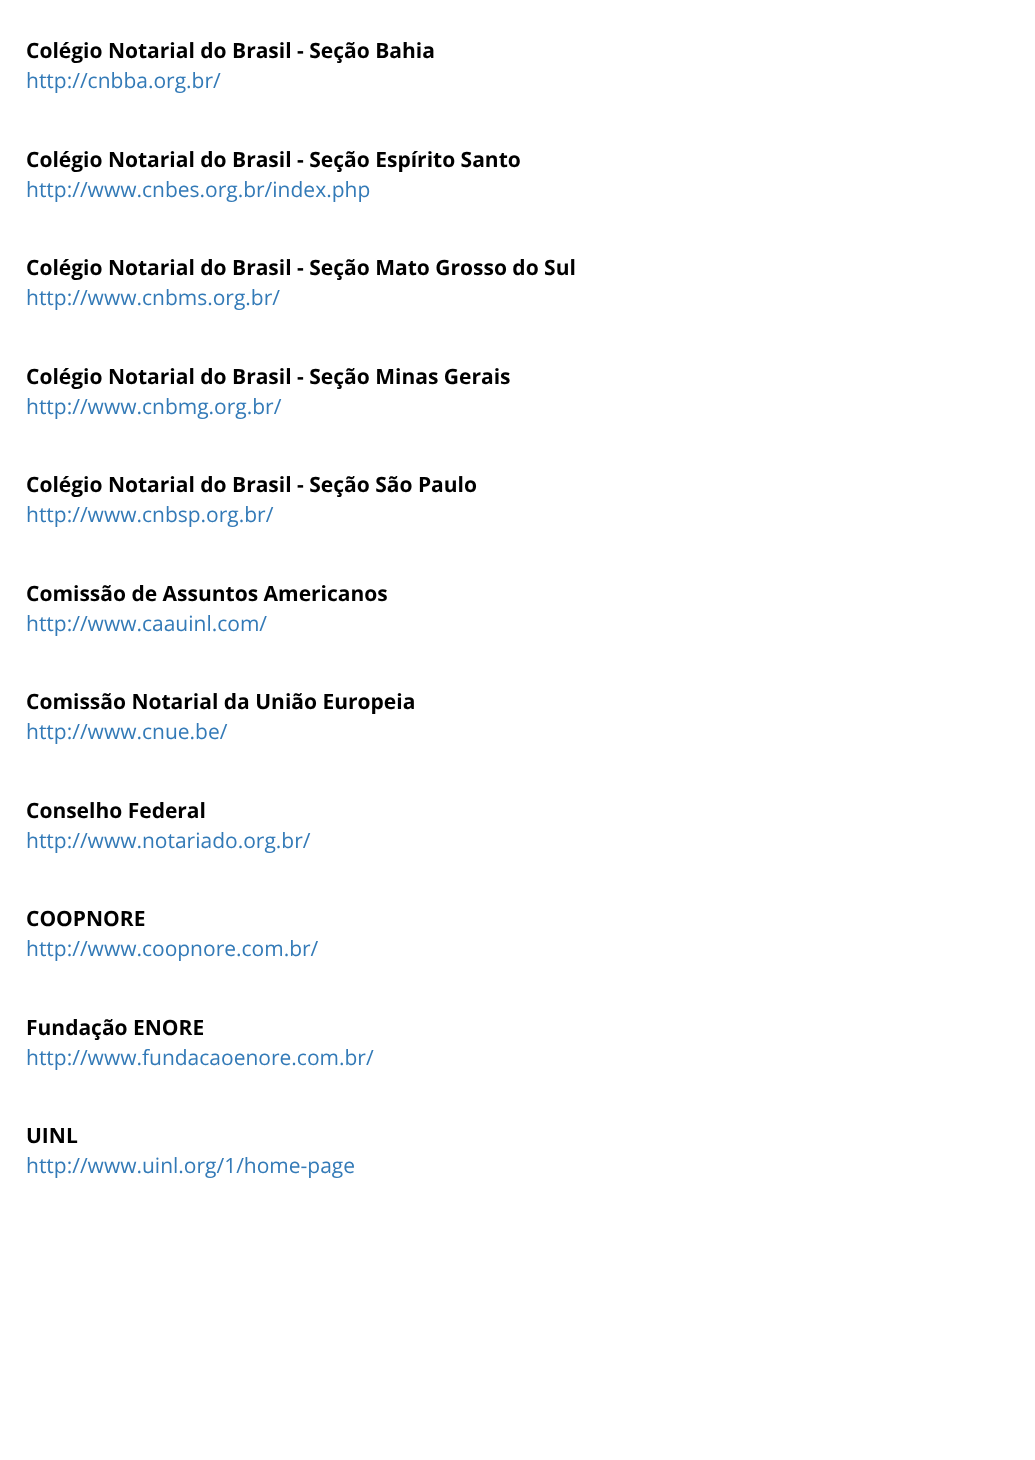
(async () => {
const canvas = document.querySelector("canvas")
canvas.width = 1035
canvas.height = 1460
const c = canvas.getContext("2d")
c.miterLimit = 4
c.fontKerning = "normal"
function T(s,x,y){c.fillText(s,x,y)}
function R(x,y,w,h){c.fillRect(x,y,w,h)}
c.fillStyle="#fff"
R(0,0,1035,1460)
c.font="bold 21px Open Sans"
c.fillStyle="#000"
T("Colégio Notarial do Brasil - Seção Bahia",26,58)
c.font="21px Open Sans"
c.fillStyle="#337ab7"
T("http://cnbba.org.br/",26,88)
c.font="bold 21px Open Sans"
c.fillStyle="#000"
T("Colégio Notarial do Brasil - Seção Espírito Santo",26,167)
c.font="21px Open Sans"
c.fillStyle="#337ab7"
T("http://www.cnbes.org.br/index.php",26,197)
c.font="bold 21px Open Sans"
c.fillStyle="#000"
T("Colégio Notarial do Brasil - Seção Mato Grosso do Sul",26,275)
c.font="21px Open Sans"
c.fillStyle="#337ab7"
T("http://www.cnbms.org.br/",26,305)
c.font="bold 21px Open Sans"
c.fillStyle="#000"
T("Colégio Notarial do Brasil - Seção Minas Gerais",26,384)
c.font="21px Open Sans"
c.fillStyle="#337ab7"
T("http://www.cnbmg.org.br/",26,414)
c.font="bold 21px Open Sans"
c.fillStyle="#000"
T("Colégio Notarial do Brasil - Seção São Paulo",26,492)
c.font="21px Open Sans"
c.fillStyle="#337ab7"
T("http://www.cnbsp.org.br/",26,522)
c.font="bold 21px Open Sans"
c.fillStyle="#000"
T("Comissão de Assuntos Americanos",26,601)
c.font="21px Open Sans"
c.fillStyle="#337ab7"
T("http://www.caauinl.com/",26,631)
c.font="bold 21px Open Sans"
c.fillStyle="#000"
T("Comissão Notarial da União Europeia",26,709)
c.font="21px Open Sans"
c.fillStyle="#337ab7"
T("http://www.cnue.be/",26,739)
c.font="bold 21px Open Sans"
c.fillStyle="#000"
T("Conselho Federal",26,818)
c.font="21px Open Sans"
c.fillStyle="#337ab7"
T("http://www.notariado.org.br/",26,848)
c.font="bold 21px Open Sans"
c.fillStyle="#000"
T("COOPNORE",26,926)
c.font="21px Open Sans"
c.fillStyle="#337ab7"
T("http://www.coopnore.com.br/",26,956)
c.font="bold 21px Open Sans"
c.fillStyle="#000"
T("Fundação ENORE",26,1035)
c.font="21px Open Sans"
c.fillStyle="#337ab7"
T("http://www.fundacaoenore.com.br/",26,1065)
c.font="bold 21px Open Sans"
c.fillStyle="#000"
T("UINL",26,1143)
c.font="21px Open Sans"
c.fillStyle="#337ab7"
T("http://www.uinl.org/1/home-page",26,1173)
})()
